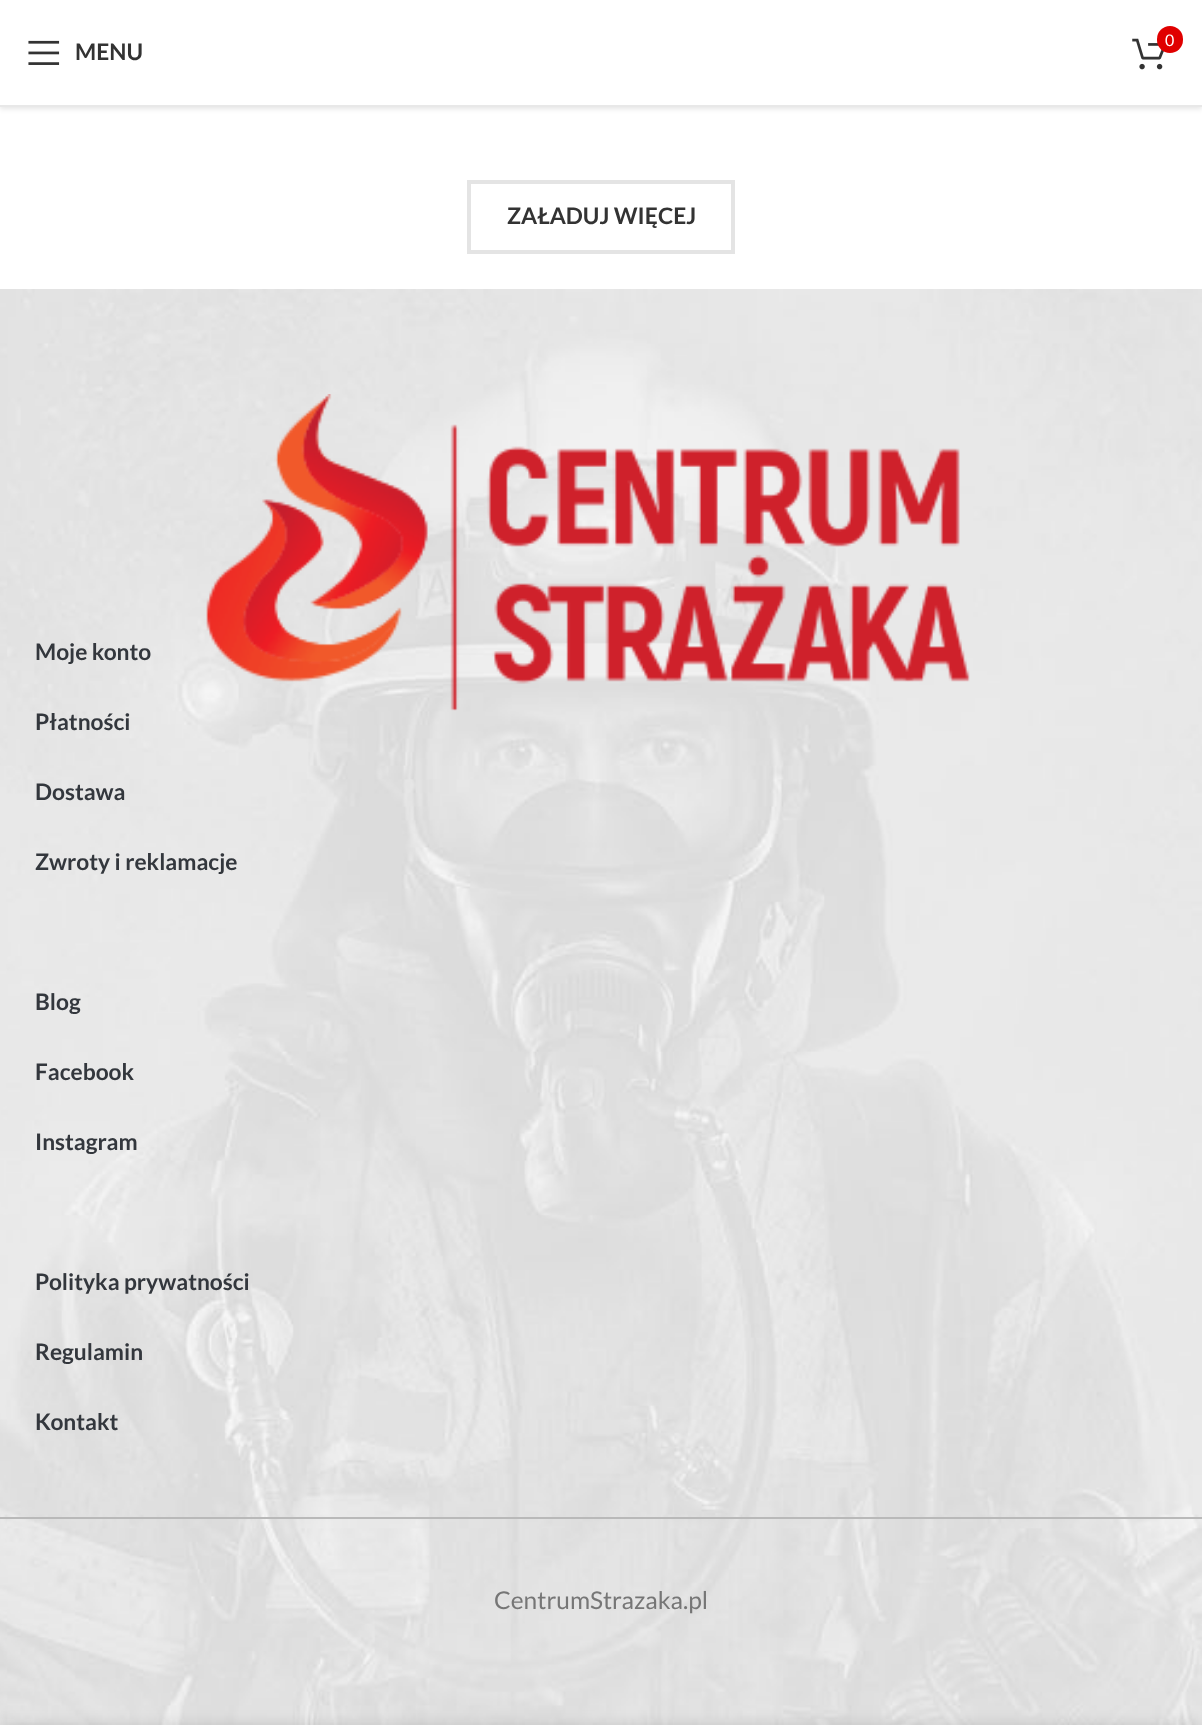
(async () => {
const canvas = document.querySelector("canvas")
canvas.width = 1202
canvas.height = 1725
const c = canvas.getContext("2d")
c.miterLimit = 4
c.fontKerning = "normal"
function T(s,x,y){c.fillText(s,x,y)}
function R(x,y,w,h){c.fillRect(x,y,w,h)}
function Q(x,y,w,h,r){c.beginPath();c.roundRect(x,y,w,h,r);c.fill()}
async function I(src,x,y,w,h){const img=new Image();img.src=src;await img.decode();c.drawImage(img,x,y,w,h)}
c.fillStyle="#fff"
R(0,0,1202,1725)
c.fillStyle="#0000001a"
c.filter="blur(2.5px)"
c.beginPath()
c.rect(0,2,1202,107)
c.fill()
c.filter="none"
c.fillStyle="#fff"
R(0,0,1202,105)
c.fillStyle="#e8e8e8"
R(0,105,1202,2)
await I("1.png",1132,38,32,32)
c.fillStyle="#e00000"
Q(1157,26,26,27,13)
c.font="16px Lato"
c.fillStyle="#fff"
T("0",1165,46)
await I("2.png",28,40,32,25)
c.font="bold 22.75px Lato"
c.fillStyle="#333"
T("MENU",75,60)
c.strokeStyle="#e4e4e4"
c.lineWidth=4
c.strokeRect(469,182,264,70)
T("ZAŁADUJ WIĘCEJ",507,224)
await I("3.png",0,289,1202,1436)
await I("4.png",206,394,764,317)
c.fillStyle="#33373d"
T("Moje konto",35,660)
T("Płatności",35,730)
T("Dostawa",35,800)
T("Zwroty i reklamacje",35,870)
T("Blog",35,1010)
T("Facebook",35,1080)
T("Instagram",35,1150)
T("Polityka prywatności",35,1290)
T("Regulamin",35,1360)
T("Kontakt",35,1430)
c.fillStyle="#b9b9b9"
R(0,1517,1202,2)
c.font="24.5px Lato"
c.fillStyle="#767676"
T("CentrumStrazaka.pl",494,1609)
c.fillStyle="#00000024"
c.filter="blur(8px)"
c.beginPath()
c.rect(0,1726,1202,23)
c.fill()
c.filter="none"
})()
